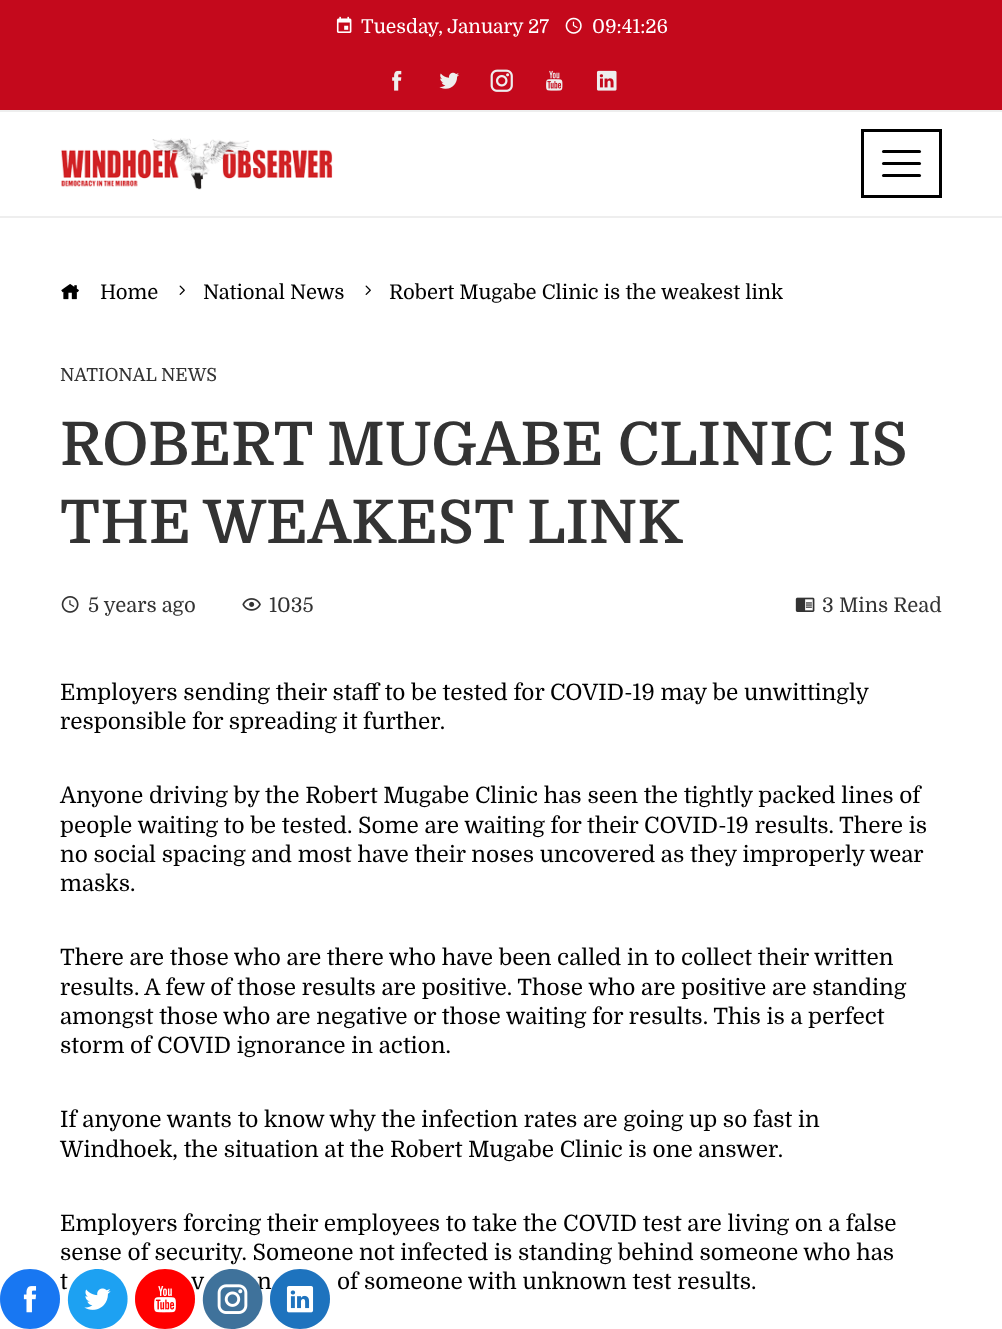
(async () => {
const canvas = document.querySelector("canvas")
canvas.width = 1002
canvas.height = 1329
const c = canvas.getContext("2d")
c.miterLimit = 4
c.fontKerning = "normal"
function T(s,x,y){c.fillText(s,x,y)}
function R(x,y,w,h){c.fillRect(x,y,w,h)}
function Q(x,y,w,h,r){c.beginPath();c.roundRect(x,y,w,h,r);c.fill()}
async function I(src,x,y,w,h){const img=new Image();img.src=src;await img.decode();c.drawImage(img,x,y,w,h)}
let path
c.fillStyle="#fff"
R(0,0,1002,1329)
c.fillStyle="#c4091c"
R(0,0,1002,110)
await I("1.png",336,16,16,17)
c.font="19.25px Domine"
c.fillStyle="#fff"
T("Tuesday, January 27",361,33)
await I("2.png",565,17,17,17)
T("09:41:26",592,33)
await I("3.png",392,70,10,21)
await I("4.png",439,72,20,17)
await I("5.png",490,69,23,23)
await I("6.png",546,70,17,21)
await I("7.png",596,70,21,21)
c.fillStyle="#eee"
R(0,110,1002,2)
R(0,216,1002,2)
await I("8.png",61,138,272,52)
c.strokeStyle="#000"
c.lineWidth=3
c.strokeRect(862.5,130.5,78,66)
c.fillStyle="#000"
Q(882,150,39,3,1.5)
Q(882,162,39,3,1.5)
Q(882,174,39,3,1.5)
await I("9.png",61,284,18,16)
c.font="20.25px Domine"
T("Home",100,299)
await I("10.png",179,285,6,10)
T("National News",203,299)
await I("10.png",365,285,6,10)
T("Robert Mugabe Clinic is the weakest link",389,299)
c.font="18px Domine"
c.fillStyle="#333"
T("NATIONAL NEWS",60,381)
c.font="600 60px Domine"
T("ROBERT MUGABE CLINIC IS",60,465)
T("THE WEAKEST LINK",60,543)
await I("11.png",61,596,18,17)
c.font="20.25px Domine"
T("5 years ago",88,612)
await I("12.png",242,598,19,13)
T("1035",269,612)
await I("13.png",795,597,20,15)
T("3 Mins Read",822,612)
c.font="22.5px Domine"
c.fillStyle="#000"
T("Employers sending their staff to be tested for COVID-19 may be unwittingly",60,700)
T("responsible for spreading it further.",60,729)
T("Anyone driving by the Robert Mugabe Clinic has seen the tightly packed lines of",60,803)
T("people waiting to be tested. Some are waiting for their COVID-19 results. There is",60,833)
T("no social spacing and most have their noses uncovered as they improperly wear",60,862)
T("masks.",60,891)
T("There are those who are there who have been called in to collect their written",60,965)
T("results. A few of those results are positive. Those who are positive are standing",60,995)
T("amongst those who are negative or those waiting for results. This is a perfect",60,1024)
T("storm of COVID ignorance in action.",60,1053)
T("If anyone wants to know why the infection rates are going up so fast in",60,1127)
T("Windhoek, the situation at the Robert Mugabe Clinic is one answer.",60,1157)
T("Employers forcing their employees to take the COVID test are living on a false",60,1231)
T("sense of security. Someone not infected is standing behind someone who has",60,1260)
T("t",60,1289)
T("v",191,1289)
T("n",257,1289)
T("of someone with unknown test results.",337,1289)
c.fillStyle="#1877f2"
path = new Path2D("M30 1269c17 0 30 13 30 30c0 17-13 30-30 30c-17 0-30-13-30-30c0-17 13-30 30-30z")
c.fill(path)
await I("14.png",23,1286,14,27)
c.fillStyle="#1da1f2"
path = new Path2D("M98 1269c-31 0-41 41-16 56c5 3 10 4 16 4c29 0 41-38 16-55c-5-3-11-5-16-5z")
c.fill(path)
await I("15.png",84,1288,27,22)
c.fillStyle="#f00"
path = new Path2D("M165 1269c17 0 30 13 30 30c0 17-13 30-30 30c-17 0-30-13-30-30c0-17 13-30 30-30z")
c.fill(path)
await I("16.png",154,1286,22,27)
c.fillStyle="#3f729b"
path = new Path2D("M232 1269c-30 0-40 41-15 56c5 3 10 4 15 4c30 0 42-38 17-55c-5-3-11-5-17-5z")
c.fill(path)
await I("17.png",217,1284,31,30)
c.fillStyle="#1e73be"
path = new Path2D("M300 1269c17 0 30 13 30 30c0 17-13 30-30 30c-17 0-30-13-30-30c0-17 13-30 30-30z")
c.fill(path)
await I("18.png",286,1286,28,27)
})()
